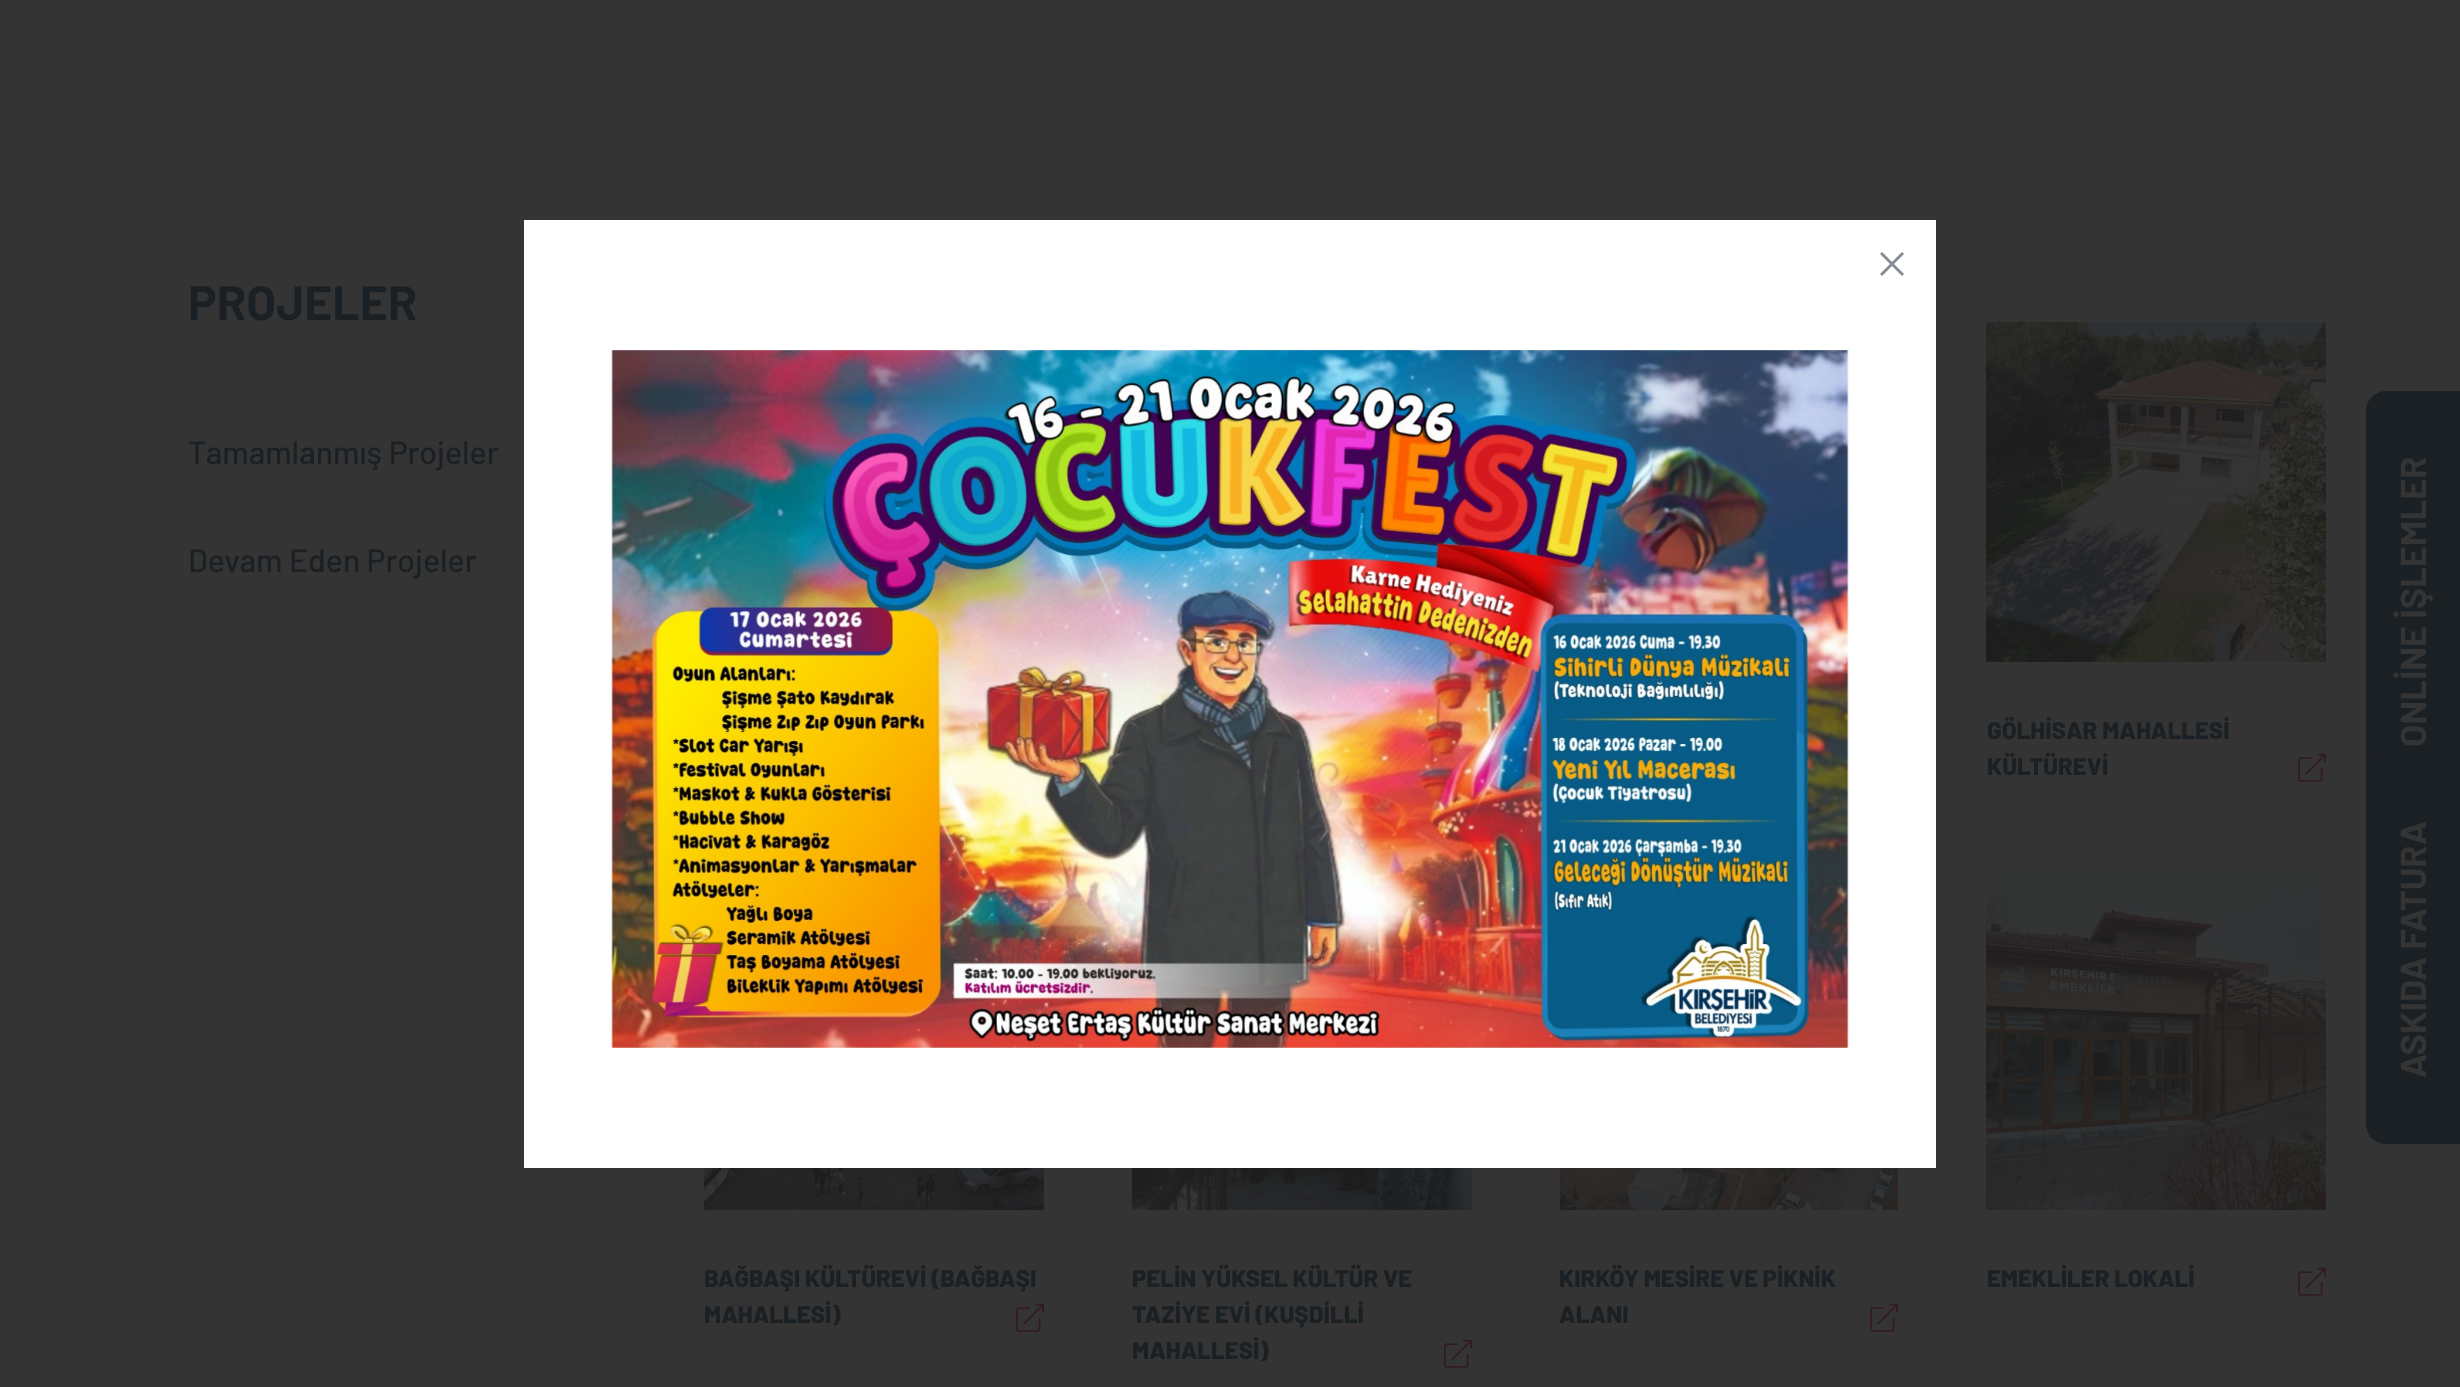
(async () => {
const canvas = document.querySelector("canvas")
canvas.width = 2460
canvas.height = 1387
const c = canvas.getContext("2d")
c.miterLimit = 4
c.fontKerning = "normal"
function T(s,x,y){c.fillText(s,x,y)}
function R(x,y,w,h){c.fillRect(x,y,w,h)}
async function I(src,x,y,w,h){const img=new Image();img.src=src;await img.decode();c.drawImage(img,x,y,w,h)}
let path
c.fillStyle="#343434"
R(0,0,2460,1387)
c.fillStyle="#fff"
R(524,220,1412,948)
await I("1.png",1880,252,24,24)
await I("2.png",611,350,1238,698)
c.font="bold 48px Barlow"
c.fillStyle="#1b2024"
T("PROJELER",188,320)
c.font="500 32px Barlow"
T("Tamamlanmış Projeler",188,464)
T("Devam Eden Projeler",188,572)
await I("3.png",1986,322,340,340)
c.font="800 24px Barlow"
T("GÖLHİSAR MAHALLESİ",1987,739)
T("KÜLTÜREVİ",1987,775)
await I("4.png",2298,753,28,29)
await I("5.png",704,1168,340,42)
T("BAĞBAŞI KÜLTÜREVİ (BAĞBAŞI",704,1287)
T("MAHALLESİ)",704,1323)
await I("4.png",1016,1303,28,29)
await I("6.png",1132,1168,340,42)
T("PELİN YÜKSEL KÜLTÜR VE",1132,1287)
T("TAZİYE EVİ (KUŞDİLLİ",1132,1323)
T("MAHALLESİ)",1132,1359)
await I("4.png",1444,1339,28,29)
await I("7.png",1560,1168,338,42)
T("KIRKÖY MESİRE VE PİKNİK",1559,1287)
T("ALANI",1559,1323)
await I("4.png",1870,1303,28,29)
await I("8.png",1986,870,340,340)
T("EMEKLİLER LOKALİ",1987,1287)
await I("4.png",2298,1267,28,29)
path = new Path2D("M2366 793v-382c0-11 9-20 20-20h74v422h-74c-11 0-20-9-20-20z")
c.fill(path)
c.font="bold 36px Barlow"
c.fillStyle="#343434"
c.save()
c.translate(2426,747)
c.rotate(-90 * Math.PI / 180)
c.fillText("ONLİNE İŞLEMLER",0,0)
c.restore()
c.fillStyle="#1b2024"
path = new Path2D("M2366 1124v-349c0-11 9-20 20-20h74v389h-74c-11 0-20-9-20-20z")
c.fill(path)
c.fillStyle="#343434"
c.save()
c.translate(2426,1078)
c.rotate(-90 * Math.PI / 180)
c.fillText("ASKIDA FATURA",0,0)
c.restore()
})()
